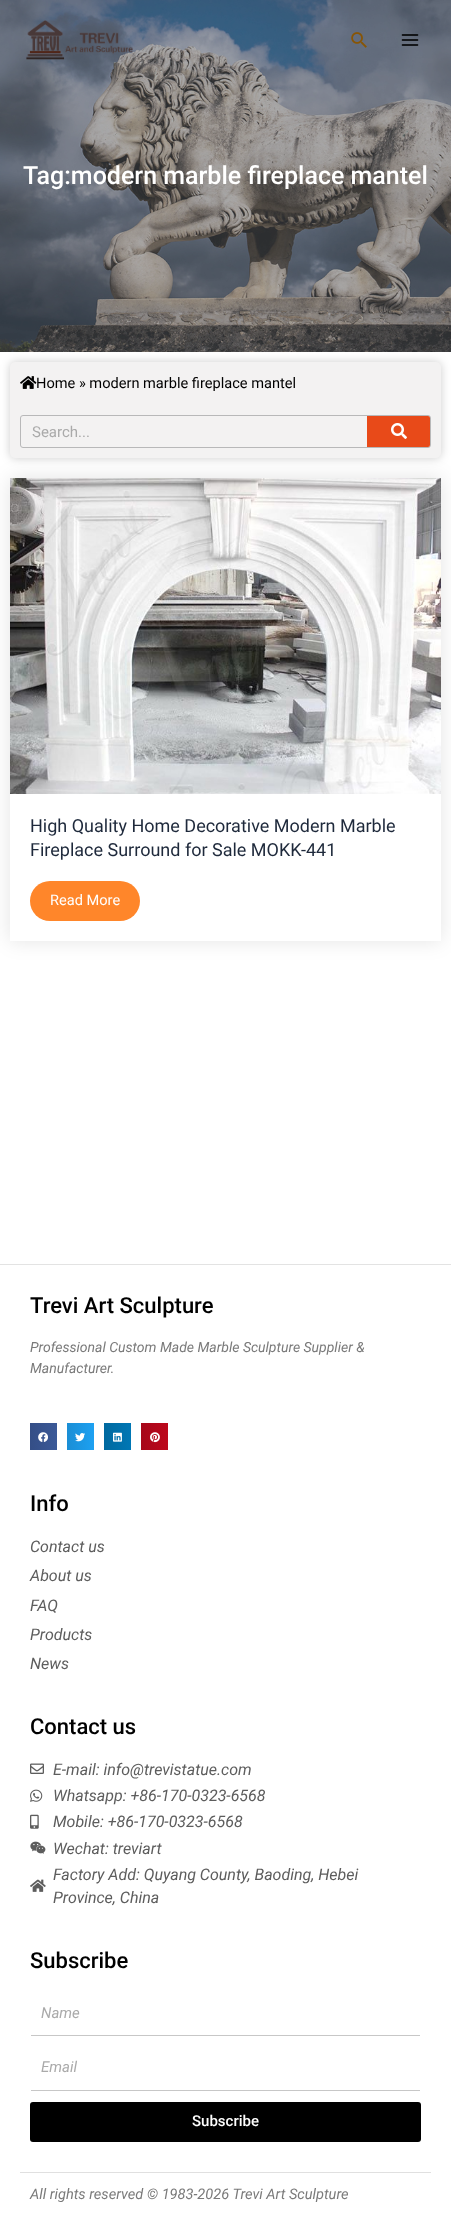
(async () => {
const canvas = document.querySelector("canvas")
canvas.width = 451
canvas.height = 2236
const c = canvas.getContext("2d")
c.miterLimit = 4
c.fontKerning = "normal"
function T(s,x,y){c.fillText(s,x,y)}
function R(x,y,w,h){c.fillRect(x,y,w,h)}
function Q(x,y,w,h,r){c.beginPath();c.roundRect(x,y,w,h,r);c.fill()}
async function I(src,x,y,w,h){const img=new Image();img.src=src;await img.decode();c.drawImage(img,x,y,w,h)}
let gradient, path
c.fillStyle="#fff"
R(0,0,451,2236)
await I("4.png",0,0,451,352)
await I("1.png",26,20,107,40)
await I("2.png",351,32,16,16)
await I("3.png",401,34,18,12)
c.font="500 25px Roboto"
T("Tag:modern marble fireplace mantel",23,184)
c.fillStyle="#00000033"
c.filter="blur(5px)"
c.beginPath()
c.roundRect(10,362,431,96,5)
c.fill()
c.filter="none"
c.fillStyle="#f3f2f2"
Q(10,362,431,96,5)
await I("5.png",20,376,17,13)
c.font="14.6px Roboto"
c.fillStyle="#000"
T("Home » modern marble fireplace mantel",36,388)
c.beginPath()
c.roundRect(20.5,415.5,410,32,2.5)
c.strokeStyle="#b8b8b9"
c.stroke()
c.font="15px Roboto"
c.fillStyle="#aaa"
T("Search...",32,437)
c.fillStyle="#e84a19"
c.beginPath()
c.roundRect(367,416,63,31,[0,2,2,0])
c.fill()
await I("6.png",391,423,16,16)
c.save()
path = new Path2D("M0 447h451v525h-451zm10 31h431v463h-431z")
c.clip(path,"evenodd")
c.fillStyle="#0000001c"
c.filter="blur(10px)"
c.beginPath()
c.rect(10,478,431,463)
c.fill()
c.filter="none"
c.restore()
await I("7.png",10,478,431,316)
c.font="18px Roboto"
c.fillStyle="#1e293b"
T("High Quality Home Decorative Modern Marble",30,832)
T("Fireplace Surround for Sale MOKK-441",30,856)
c.fillStyle="#ff862a"
Q(30,881,110,40,20)
c.font="14.6px Roboto"
c.fillStyle="#fff"
T("Read More",50,905)
c.fillStyle="#e3e3e3"
R(0,1264,451,1)
c.font="500 22px Roboto"
c.fillStyle="#000"
T("Trevi Art Sculpture",30,1313)
c.font="italic 14px Roboto"
c.fillStyle="#7a7a7a"
T("Professional Custom Made Marble Sculpture Supplier &",30,1352)
T("Manufacturer.",30,1373)
gradient = c.createLinearGradient(30,1437,57,1437)
gradient.addColorStop(0,"#344e86")
gradient.addColorStop(1,"#3b5998")
c.fillStyle = gradient
R(30,1423,27,27)
await I("8.png",38,1432,10,10)
gradient = c.createLinearGradient(67,1437,94,1437)
gradient.addColorStop(0,"#1a8ed5")
gradient.addColorStop(1,"#1da1f2")
c.fillStyle = gradient
R(67,1423,27,27)
await I("9.png",75,1433,10,9)
gradient = c.createLinearGradient(104,1437,131,1437)
gradient.addColorStop(0,"#00699f")
gradient.addColorStop(1,"#0077b5")
c.fillStyle = gradient
R(104,1423,27,27)
await I("10.png",113,1432,9,10)
gradient = c.createLinearGradient(141,1437,168,1437)
gradient.addColorStop(0,"#a60719")
gradient.addColorStop(1,"#bd081c")
c.fillStyle = gradient
R(141,1423,27,27)
await I("11.png",150,1432,10,11)
c.font="500 22px Roboto"
c.fillStyle="#000"
T("Info",30,1511)
c.font="italic 16px Roboto"
c.fillStyle="#5d5d5d"
T("Contact us",30,1552)
T("About us",30,1581)
T("FAQ",30,1611)
T("Products",30,1640)
T("News",30,1669)
c.font="500 22px Roboto"
c.fillStyle="#000"
T("Contact us",30,1734)
await I("12.png",30,1763,14,11)
c.font="italic 16px Roboto"
c.fillStyle="#5d5d5d"
T("E-mail: info@trevistatue.com",53,1775)
await I("13.png",30,1789,13,13)
T("Whatsapp: +86-170-0323-6568",53,1801)
await I("14.png",30,1814,9,15)
T("Mobile: +86-170-0323-6568",53,1827)
await I("15.png",30,1841,16,13)
T("Wechat: treviart",53,1854)
await I("16.png",30,1879,16,13)
T("Factory Add: Quyang County, Baoding, Hebei",53,1880)
T("Province, China",53,1903)
c.font="500 22px Roboto"
c.fillStyle="#000"
T("Subscribe",30,1968)
c.fillStyle="#c7c7c7"
R(31,2035,389,1)
c.font="italic 15px Roboto"
c.fillStyle="#aaa"
T("Name",41,2018)
c.fillStyle="#c7c7c7"
R(31,2090,389,1)
c.fillStyle="#aaa"
T("Email",41,2072)
c.fillStyle="#000"
Q(30,2102,391,40,3)
c.font="500 15px Roboto"
c.fillStyle="#fff"
T("Subscribe",192,2126)
c.fillStyle="#e0e0e0"
R(20,2172,411,1)
c.font="italic 14.6px Roboto"
c.fillStyle="#7a7a7a"
T("All rights reserved © 1983-2026 Trevi Art Sculpture",30,2199)
})()
